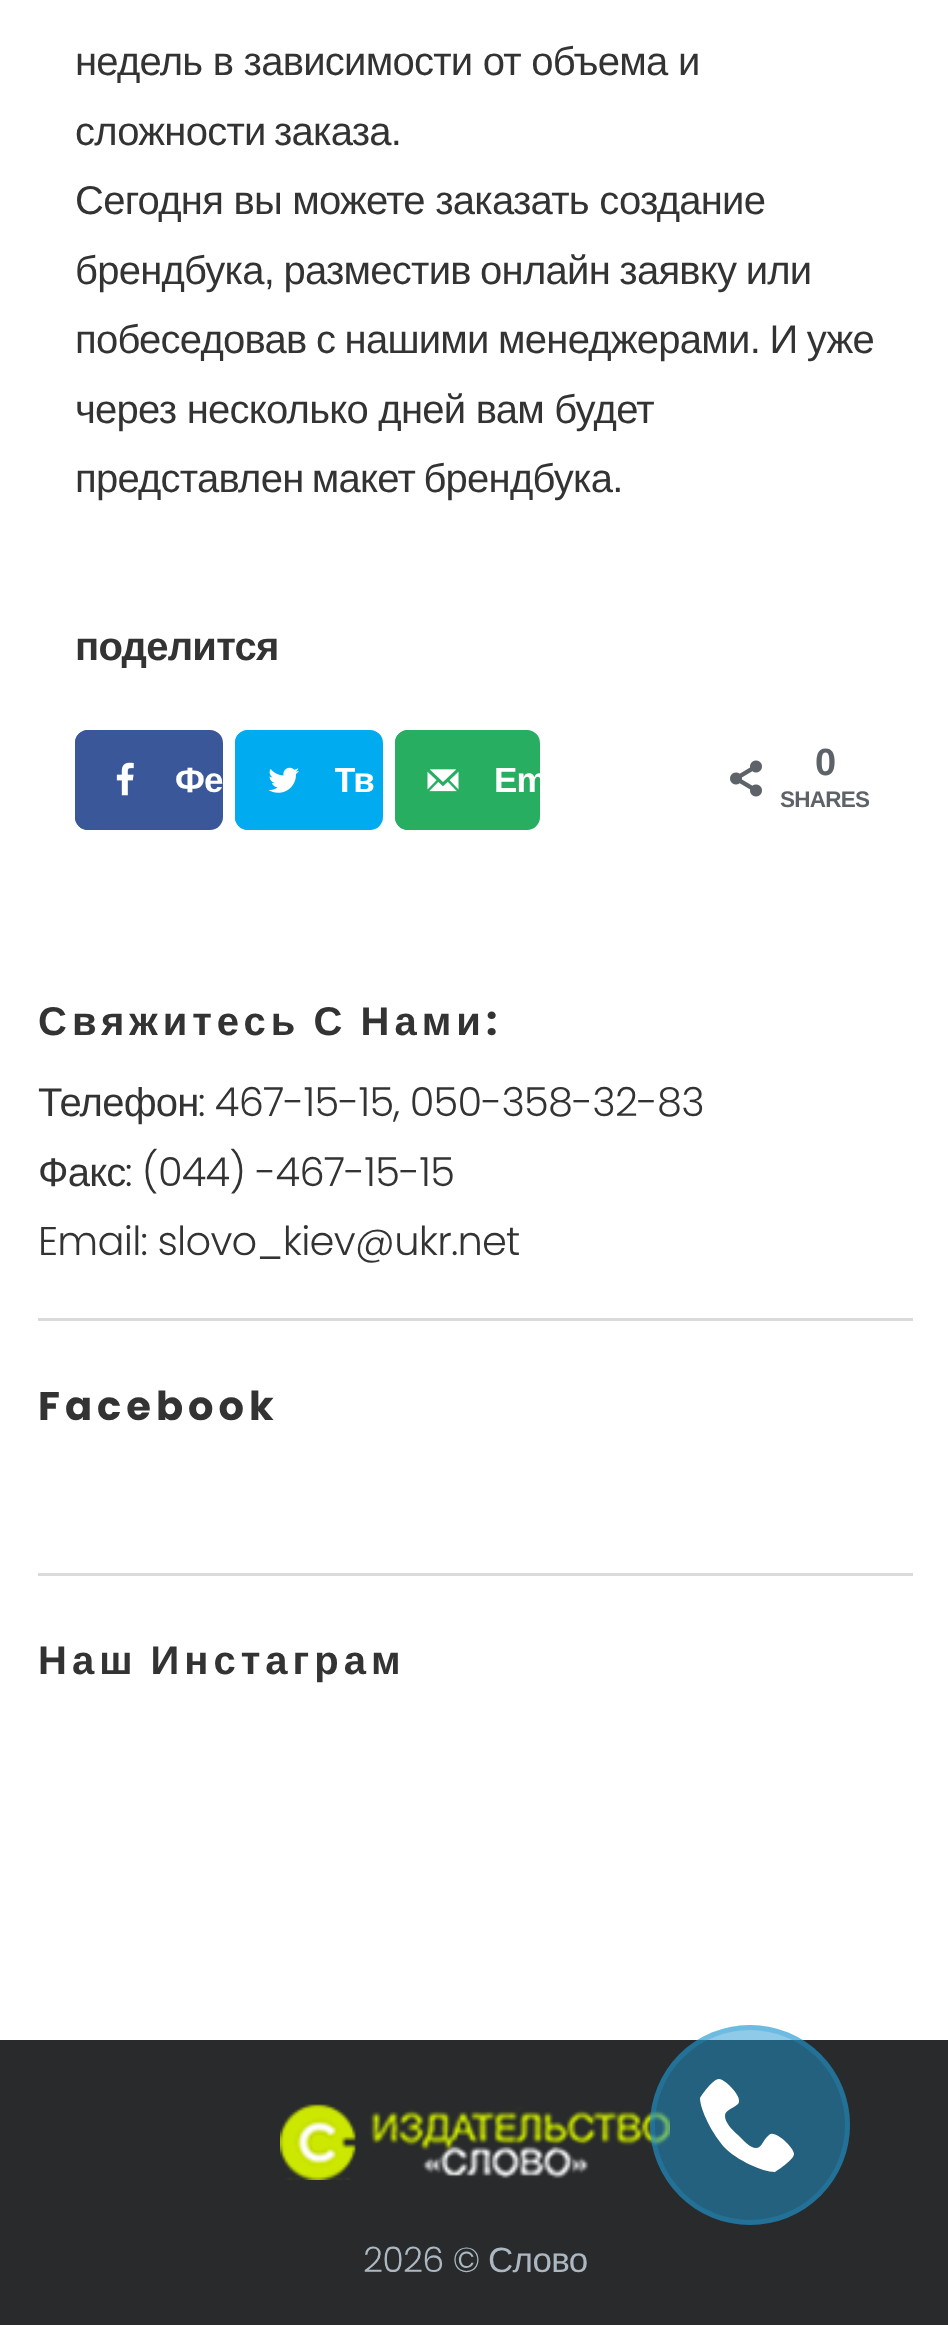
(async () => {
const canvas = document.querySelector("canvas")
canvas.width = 948
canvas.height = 2325
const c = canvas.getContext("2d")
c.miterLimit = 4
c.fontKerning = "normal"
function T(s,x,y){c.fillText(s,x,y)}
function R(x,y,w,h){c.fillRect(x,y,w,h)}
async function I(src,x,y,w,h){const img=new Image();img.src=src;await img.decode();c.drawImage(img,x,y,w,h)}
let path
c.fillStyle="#fff"
R(0,0,948,2325)
c.letterSpacing="-0.75px"
c.font="40px Liberation Sans"
c.fillStyle="#333"
T("недель в зависимости от объема и",75,75)
c.wordSpacing="-2px"
T("сложности заказа.",75,145)
c.wordSpacing="0px"
T("Сегодня вы можете заказать создание",75,214)
c.wordSpacing="-1px"
T("брендбука, разместив онлайн заявку или",75,284)
T("побеседовав с нашими менеджерами. И уже",75,353)
c.wordSpacing="0px"
T("через несколько дней вам будет",75,423)
c.wordSpacing="-2px"
T("представлен макет брендбука.",75,492)
c.wordSpacing="0px"
c.font="bold 40px Liberation Sans"
T("поделится",75,660)
c.fillStyle="#3a579a"
c.beginPath()
c.roundRect(77.5,732.5,143,95,10.5)
c.fill()
c.strokeStyle="#3a579a"
c.lineWidth=5
c.stroke()
c.beginPath()
c.roundRect(77.5,732.5,95,95,[10.5,0,0,10.5])
c.fill()
c.stroke()
await I("1.png",116,762,18,34)
c.font="bold 35px Liberation Sans"
c.fillStyle="#fff"
T("Фе",175,792)
c.fillStyle="#00abf0"
c.beginPath()
c.roundRect(237.5,732.5,143,95,10.5)
c.fill()
c.strokeStyle="#00abf0"
c.stroke()
c.fillStyle="#fff"
T("Тв",334,792)
c.fillStyle="#00abf0"
c.beginPath()
c.roundRect(237.5,732.5,95,95,[10.5,0,0,10.5])
c.fill()
c.stroke()
await I("2.png",268,767,31,26)
c.fillStyle="#27ae60"
c.beginPath()
c.roundRect(397.5,732.5,140,95,10.5)
c.fill()
c.strokeStyle="#27ae60"
c.stroke()
c.beginPath()
c.roundRect(397.5,732.5,95,95,[10.5,0,0,10.5])
c.fill()
c.stroke()
await I("3.png",427,769,32,23)
c.save()
c.beginPath()
c.rect(395,730,145,100)
c.clip()
c.fillStyle="#fff"
T("Em",494,792)
c.restore()
await I("4.png",730,760,32,37)
c.font="bold 38px Liberation Sans"
c.fillStyle="#5d6368"
T("0",815,775)
c.font="bold 22.5px Liberation Sans"
T("SHARES",780,807)
c.letterSpacing="5px"
c.wordSpacing="-3px"
c.font="bold 40px Liberation Sans"
c.fillStyle="#333"
T("Свяжитесь С Нами",38,1035)
c.wordSpacing="0px"
c.font="bold 40px Poppins"
T(":",486,1035)
c.letterSpacing="-0.75px"
c.font="40px Liberation Sans"
T("Телефон",38,1116)
c.font="300 40px Poppins"
T(": 467-15-15, 050-358-32-83",198,1116)
c.font="40px Liberation Sans"
T("Факс",38,1186)
c.font="300 40px Poppins"
T(": (044) -467-15-15",125,1186)
T("Email: slovo_kiev@ukr.net",38,1255)
c.fillStyle="#dadada"
R(38,1318,875,3)
c.letterSpacing="5px"
c.font="bold 40px Poppins"
c.fillStyle="#333"
T("Facebook",38,1420)
c.fillStyle="#dadada"
R(38,1573,875,3)
c.wordSpacing="-3px"
c.font="bold 40px Liberation Sans"
c.fillStyle="#333"
T("Наш Инстаграм",38,1674)
c.fillStyle="#282a2c"
R(0,2040,948,285)
await I("5.png",280,2104,390,76)
c.letterSpacing="-0.75px"
c.wordSpacing="0px"
c.font="300 35px Poppins"
c.fillStyle="#acb8c1"
T("2026 ©",363,2272)
c.font="35px Liberation Sans"
T("Слово",488,2272)
c.fillStyle="#2098d180"
c.beginPath()
c.arc(750,2125,100,0,7)
c.fill()
c.beginPath()
c.arc(750,2125,97.5,0,7)
c.strokeStyle="#2098d14d"
c.stroke()
c.fillStyle="#fff"
path = new Path2D("M769 2135c-7 6-7 13-13 13c-6 0-12-7-18-13c-7-6-13-13-13-19c0-6 6-6 13-12c6-6-13-25-19-25c-7 0-19 19-19 19c0 12 13 37 25 50c12 12 37 24 50 24c0 0 19-12 19-18c0-6-19-25-25-19z")
c.fill(path)
})()
